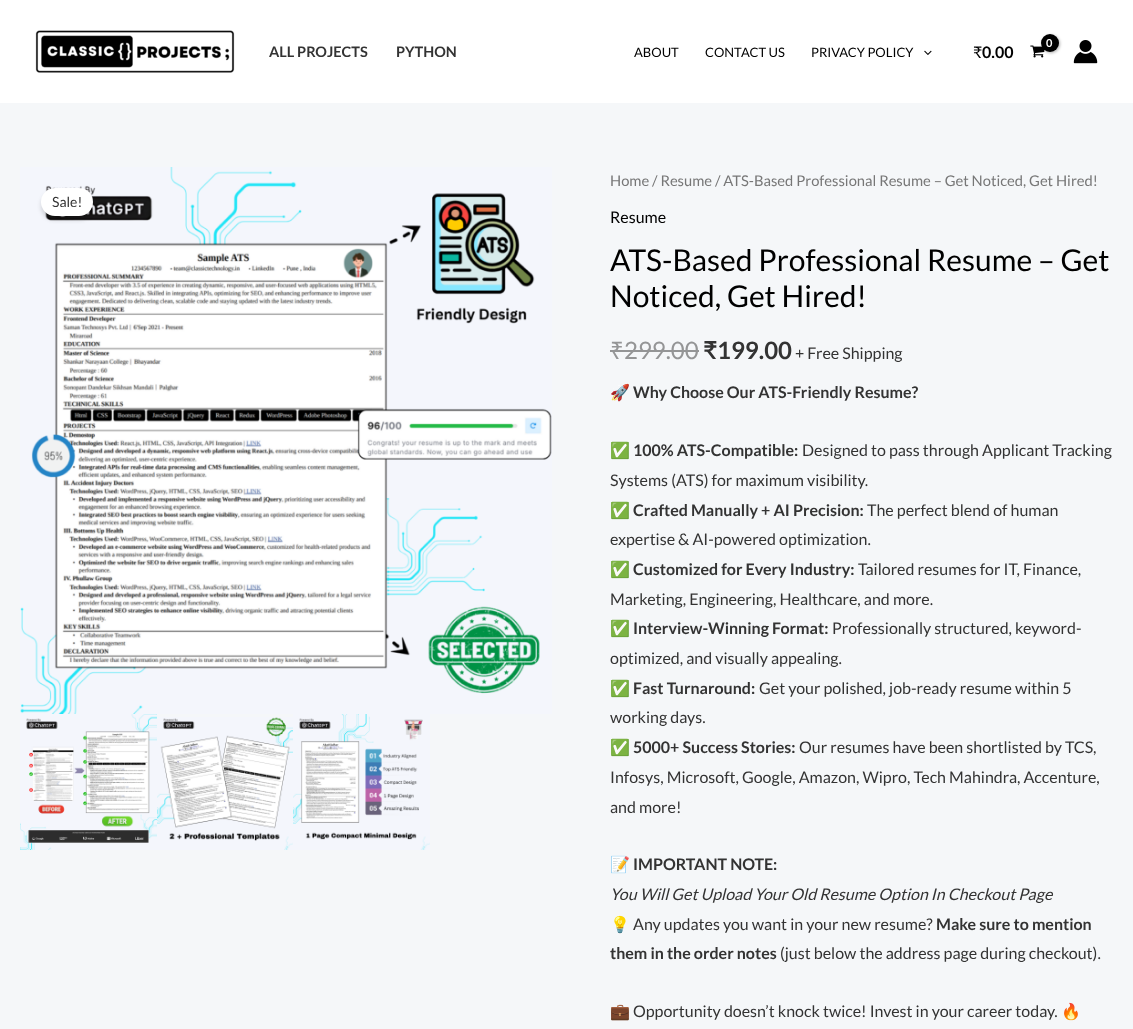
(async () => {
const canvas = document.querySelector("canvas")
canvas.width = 1133
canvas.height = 1029
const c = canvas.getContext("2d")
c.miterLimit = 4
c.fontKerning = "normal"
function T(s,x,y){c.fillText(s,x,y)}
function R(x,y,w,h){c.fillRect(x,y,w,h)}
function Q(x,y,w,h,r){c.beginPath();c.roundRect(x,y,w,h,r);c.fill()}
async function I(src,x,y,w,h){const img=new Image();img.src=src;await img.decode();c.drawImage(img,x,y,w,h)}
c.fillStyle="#f5f7f9"
R(0,0,1133,1029)
c.fillStyle="#fff"
R(0,0,1133,103)
await I("1.png",35,30,200,43)
c.font="bold 14.5px 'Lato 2'"
c.fillStyle="#333"
T("ALL PROJECTS",269,57)
T("PYTHON",396,57)
c.font="13px Lato"
c.fillStyle="#000"
T("ABOUT",634,57)
T("CONTACT US",705,57)
T("PRIVACY POLICY",811,57)
await I("2.png",924,50,8,5)
await I("3.png",1030,45,15,13)
c.fillStyle="#0000004d"
c.filter="blur(1.5px)"
c.beginPath()
c.roundRect(1042,35,18,18,9)
c.fill()
c.filter="none"
c.fillStyle="#000"
c.beginPath()
c.arc(1050,43,9,0,7)
c.fill()
c.font="bold 11px 'Lato 2'"
c.fillStyle="#fff"
T("0",1046,47)
c.font="16px 'Lato 2'"
c.fillStyle="#000"
T("₹",973,58)
c.font="bold 16px 'Lato 2'"
T("0.00",982,58)
await I("4.png",1073,40,25,24)
await I("5.png",20,167,532,547)
await I("6.png",20,714,137,136)
await I("7.png",157,717,136,133)
await I("8.png",293,714,137,136)
c.font="14.75px Lato"
c.fillStyle="#777"
T("Home / Resume / ATS-Based Professional Resume – Get Noticed, Get Hired!",610,186)
c.font="16px Lato"
c.fillStyle="#000"
T("Resume",610,223)
c.font="30px Lato"
T("ATS-Based Professional Resume – Get",610,271)
T("Noticed, Get Hired!",610,307)
c.font="24px Noto Sans"
c.fillStyle="#949596"
T("₹",610,359)
R(610,350,14,2)
c.font="24px Lato"
T("299.00",624,359)
R(624,350,75,2)
c.font="bold 24px Lato"
c.fillStyle="#333"
T("₹",703,359)
c.font="bold 24px 'Lato 2'"
T("199.00",717,359)
c.font="16px Lato"
T("+ Free Shipping",795,359)
c.font="bold 16px Noto Color Emoji"
T("🚀",610,398)
c.font="bold 16px 'Lato 2'"
T("Why Choose Our ATS-Friendly Resume?",633,398)
c.font="16px Noto Color Emoji"
T("✅",610,456)
c.font="bold 16px 'Lato 2'"
T("100% ATS-Compatible:",633,456)
c.font="16px Lato"
T("Designed to pass through Applicant Tracking",802,456)
T("Systems (ATS) for maximum visibility.",610,486)
c.font="16px Noto Color Emoji"
T("✅",610,516)
c.font="bold 16px 'Lato 2'"
T("Crafted Manually + AI Precision:",633,516)
c.font="16px Lato"
T("The perfect blend of human",867,516)
T("expertise & AI-powered optimization.",610,545)
c.font="16px Noto Color Emoji"
T("✅",610,575)
c.font="bold 16px 'Lato 2'"
T("Customized for Every Industry:",633,575)
c.font="16px Lato"
T("Tailored resumes for IT, Finance,",858,575)
T("Marketing, Engineering, Healthcare, and more.",610,605)
c.font="16px Noto Color Emoji"
T("✅",610,634)
c.font="bold 16px 'Lato 2'"
T("Interview-Winning Format:",633,634)
c.font="16px Lato"
T("Professionally structured, keyword-",832,634)
T("optimized, and visually appealing.",610,664)
c.font="16px Noto Color Emoji"
T("✅",610,694)
c.font="bold 16px 'Lato 2'"
T("Fast Turnaround:",633,694)
c.font="16px Lato"
T("Get your polished, job-ready resume within 5",759,694)
T("working days.",610,723)
c.font="16px Noto Color Emoji"
T("✅",610,753)
c.font="bold 16px 'Lato 2'"
T("5000+ Success Stories:",633,753)
c.font="16px Lato"
T("Our resumes have been shortlisted by TCS,",799,753)
T("Infosys, Microsoft, Google, Amazon, Wipro, Tech Mahindra, Accenture,",610,783)
T("and more!",610,813)
c.font="bold 16px Noto Color Emoji"
T("📝",610,870)
c.font="bold 16px 'Lato 2'"
T("IMPORTANT NOTE:",633,870)
c.font="italic 16px Lato"
T("You Will Get Upload Your Old Resume Option In Checkout Page",610,900)
c.font="16px Noto Color Emoji"
T("💡",610,930)
c.font="16px Lato"
T("Any updates you want in your new resume?",633,930)
c.font="bold 16px 'Lato 2'"
T("Make sure to mention",936,930)
T("them in the order notes",610,959)
c.font="16px Lato"
T("(just below the address page during checkout).",780,959)
c.font="16px Noto Color Emoji"
T("💼",610,1017)
c.font="16px Lato"
T("Opportunity doesn’t knock twice! Invest in your career today.",633,1017)
c.font="16px Noto Color Emoji"
T("🔥",1061,1017)
c.fillStyle="#00000026"
c.filter="blur(2px)"
c.beginPath()
c.roundRect(41,192,52,28,14)
c.fill()
c.filter="none"
c.fillStyle="#fff"
Q(41,188,52,28,14)
c.font="14px Lato"
c.fillStyle="#333"
T("Sale!",52,207)
})()
